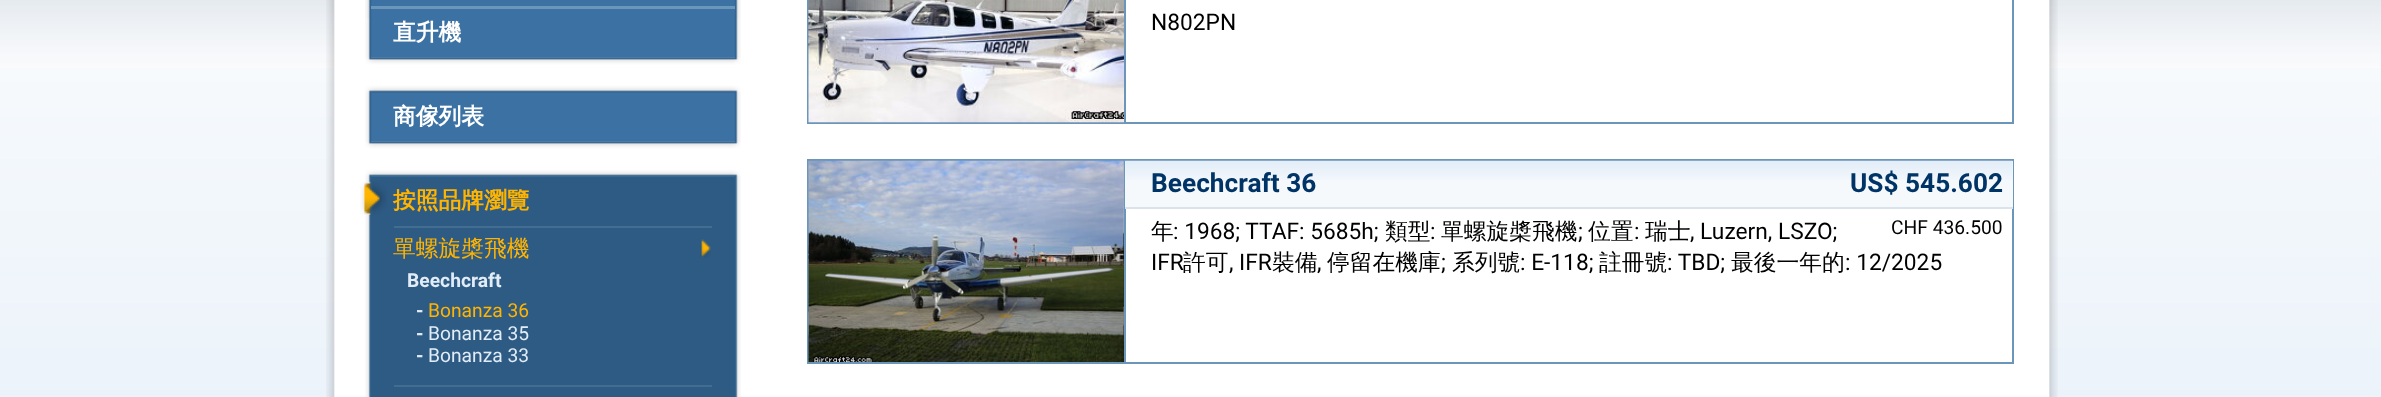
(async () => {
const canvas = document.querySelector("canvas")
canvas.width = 2381
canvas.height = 397
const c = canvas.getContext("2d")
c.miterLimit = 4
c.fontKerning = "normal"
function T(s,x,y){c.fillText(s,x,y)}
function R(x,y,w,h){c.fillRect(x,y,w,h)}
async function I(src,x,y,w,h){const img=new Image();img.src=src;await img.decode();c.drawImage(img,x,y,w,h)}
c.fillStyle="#fff"
R(0,0,2381,397)
await I("1.png",0,0,2381,397)
await I("2.png",326,0,1732,397)
await I("3.png",365,0,376,397)
c.fillStyle="#6c95ba"
R(371,6,364,3)
R(371,57,364,1)
c.font="bold 22.75px WenQuanYi Zen Hei"
c.fillStyle="#fff"
T("直升機",393,40)
await I("4.png",365,57,376,36)
c.fillStyle="#6c95ba"
R(371,141,364,1)
c.fillStyle="#fff"
T("商傢列表",393,124)
await I("4.png",365,141,376,36)
c.fillStyle="#2e5b84"
R(371,177,364,220)
await I("5.png",360,181,27,34)
c.fillStyle="#ffb400"
T("按照品牌瀏覽",393,208)
c.fillStyle="#436c91"
R(394,226,318,2)
await I("6.png",700,239,11,19)
c.font="500 22.75px WenQuanYi Zen Hei"
c.fillStyle="#ffb400"
T("單螺旋槳飛機",393,256)
c.font="bold 19.25px Roboto"
c.fillStyle="#e1ecf7"
T("Beechcraft",407,287)
T("-",416,317)
c.font="19.25px Roboto"
c.fillStyle="#ffb400"
T("Bonanza 36",428,317)
c.font="bold 19.25px Roboto"
c.fillStyle="#e1ecf7"
T("-",416,340)
c.font="19.25px Roboto"
T("Bonanza 35",428,340)
c.font="bold 19.25px Roboto"
T("-",416,362)
c.font="19.25px Roboto"
T("Bonanza 33",428,362)
c.fillStyle="#436c91"
R(394,385,318,2)
c.fillStyle="#fff"
R(2048,0,1,397)
c.strokeStyle="#6c95ba"
c.lineWidth=2
c.strokeRect(808,-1,1205,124)
await I("7.png",808,0,316,123)
c.fillStyle="#6c95ba"
R(1124,0,2,123)
c.font="22.75px Roboto"
c.fillStyle="#000"
T("N802PN",1151,30)
c.strokeRect(808,160,1205,203)
await I("8.png",808,160,318,202)
c.fillStyle="#6c95ba"
R(1124,161,2,201)
c.fillStyle="#f5f9fc"
R(1125,161,888,46)
await I("9.png",1125,160,888,20)
c.fillStyle="#dae3eb"
R(1125,207,888,2)
c.font="bold 26.25px Roboto"
c.fillStyle="#003466"
T("Beechcraft 36",1151,192)
T("US$ 545.602",1850,192)
c.font="500 22.75px WenQuanYi Zen Hei"
c.fillStyle="#000"
T("年",1151,239)
c.font="22.75px Roboto"
T(": 1968; TTAF: 5685h;",1173,239)
c.font="500 22.75px WenQuanYi Zen Hei"
T("類型",1385,239)
c.font="22.75px Roboto"
T(":",1430,239)
c.font="500 22.75px WenQuanYi Zen Hei"
T("單螺旋槳飛機",1441,239)
c.font="22.75px Roboto"
T(";",1578,239)
c.font="500 22.75px WenQuanYi Zen Hei"
T("位置",1588,239)
c.font="22.75px Roboto"
T(":",1634,239)
c.font="500 22.75px WenQuanYi Zen Hei"
T("瑞士",1645,239)
c.font="22.75px Roboto"
T(", Luzern, LSZO;",1690,239)
c.font="19.25px Roboto"
T("CHF 436.500",1891,234)
c.font="22.75px Roboto"
T("IFR",1151,270)
c.font="500 22.75px WenQuanYi Zen Hei"
T("許可",1183,270)
c.font="22.75px Roboto"
T(", IFR",1229,270)
c.font="500 22.75px WenQuanYi Zen Hei"
T("裝備",1272,270)
c.font="22.75px Roboto"
T(",",1317,270)
c.font="500 22.75px WenQuanYi Zen Hei"
T("停留在機庫",1327,270)
c.font="22.75px Roboto"
T(";",1441,270)
c.font="500 22.75px WenQuanYi Zen Hei"
T("系列號",1452,270)
c.font="22.75px Roboto"
T(": E-118;",1520,270)
c.font="500 22.75px WenQuanYi Zen Hei"
T("註冊號",1599,270)
c.font="22.75px Roboto"
T(": TBD;",1667,270)
c.font="500 22.75px WenQuanYi Zen Hei"
T("最後一年的",1731,270)
c.font="22.75px Roboto"
T(": 12/2025",1845,270)
})()
